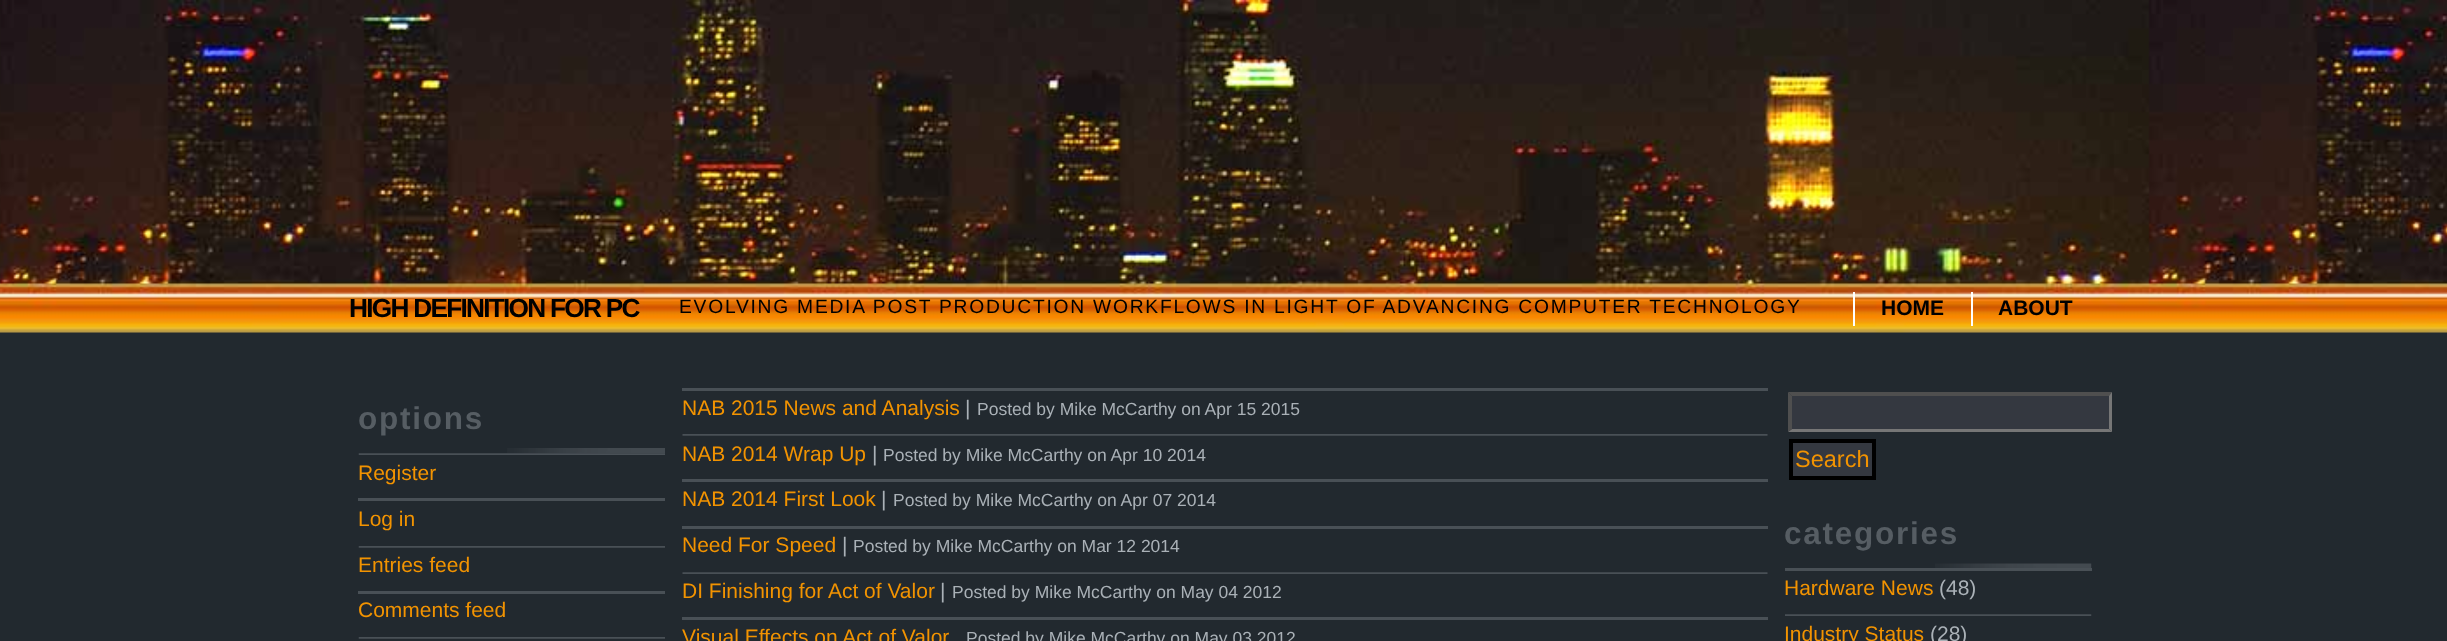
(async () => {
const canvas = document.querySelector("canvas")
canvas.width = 2447
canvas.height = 641
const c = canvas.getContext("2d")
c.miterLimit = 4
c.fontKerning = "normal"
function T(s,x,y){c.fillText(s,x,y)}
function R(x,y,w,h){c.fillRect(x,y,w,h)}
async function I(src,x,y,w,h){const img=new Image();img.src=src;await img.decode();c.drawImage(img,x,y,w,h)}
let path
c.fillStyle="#22292f"
R(0,0,2447,641)
await I("1.png",0,0,2447,333)
c.letterSpacing="-1.75px"
c.font="bold 26.25px Liberation Sans"
c.fillStyle="#000"
T("HIGH DEFINITION FOR PC",349,317)
c.letterSpacing="1.75px"
c.font="19.25px Liberation Sans"
T("EVOLVING MEDIA POST PRODUCTION WORKFLOWS IN LIGHT OF ADVANCING COMPUTER TECHNOLOGY",679,313)
c.fillStyle="#fff"
R(1853,292,2,34)
c.letterSpacing="0px"
c.font="bold 21px Liberation Sans"
c.fillStyle="#000"
T("HOME",1881,315)
c.fillStyle="#fff"
R(1971,292,2,34)
c.fillStyle="#000"
T("ABOUT",1998,315)
c.fillStyle="#495056"
R(682,388,1086,3)
c.font="21px Liberation Sans"
c.fillStyle="#f29301"
T("NAB 2015 News and Analysis",682,415)
c.fillStyle="#aab1b7"
T("|",965,415)
c.font="17.5px Liberation Sans"
T("Posted by Mike McCarthy on Apr 15 2015",977,415)
await I("2.png",682,434,1086,2)
c.font="21px Liberation Sans"
c.fillStyle="#f29301"
T("NAB 2014 Wrap Up",682,461)
c.fillStyle="#aab1b7"
T("|",872,461)
c.font="17.5px Liberation Sans"
T("Posted by Mike McCarthy on Apr 10 2014",883,461)
c.fillStyle="#495056"
R(682,479,1086,3)
c.font="21px Liberation Sans"
c.fillStyle="#f29301"
T("NAB 2014 First Look",682,506)
c.fillStyle="#aab1b7"
T("|",881,506)
c.font="17.5px Liberation Sans"
T("Posted by Mike McCarthy on Apr 07 2014",893,506)
c.fillStyle="#495056"
R(682,526,1086,3)
c.font="21px Liberation Sans"
c.fillStyle="#f29301"
T("Need For Speed",682,552)
c.fillStyle="#aab1b7"
T("|",842,552)
c.font="17.5px Liberation Sans"
T("Posted by Mike McCarthy on Mar 12 2014",853,552)
await I("3.png",682,572,1086,2)
c.font="21px Liberation Sans"
c.fillStyle="#f29301"
T("DI Finishing for Act of Valor",682,598)
c.fillStyle="#aab1b7"
T("|",940,598)
c.font="17.5px Liberation Sans"
T("Posted by Mike McCarthy on May 04 2012",952,598)
c.fillStyle="#495056"
R(682,617,1086,3)
c.font="21px Liberation Sans"
c.fillStyle="#f29301"
T("Visual Effects on Act of Valor",682,644)
c.font="17.5px Liberation Sans"
c.fillStyle="#aab1b7"
T("Posted by Mike McCarthy on May 03 2012",966,644)
await I("4.png",507,448,158,6)
c.letterSpacing="1.75px"
c.font="bold 31.5px Liberation Sans"
c.fillStyle="#565d63"
T("options",358,429)
await I("5.png",358,453,307,2)
c.letterSpacing="0px"
c.font="21px Liberation Sans"
c.fillStyle="#f29301"
T("Register",358,480)
c.fillStyle="#495056"
R(358,498,307,3)
c.fillStyle="#f29301"
T("Log in",358,526)
await I("6.png",358,546,307,2)
T("Entries feed",358,572)
c.fillStyle="#495056"
R(358,591,307,3)
c.fillStyle="#f29301"
T("Comments feed",358,617)
await I("6.png",358,637,307,2)
c.fillStyle="#343840"
R(1789,392,323,40)
c.fillStyle="#4f4f4f"
path = new Path2D("M1788 392h324l-3 4h-317z")
c.fill(path)
c.fillStyle="#767676"
path = new Path2D("M2112 392v40l-3-3v-33z")
c.fill(path)
path = new Path2D("M2112 432h-324l4-3h317z")
c.fill(path)
c.fillStyle="#4f4f4f"
path = new Path2D("M1788 432v-40l4 4v33z")
c.fill(path)
c.fillStyle="#343840"
c.beginPath()
c.rect(1791,441,83,37)
c.fill()
c.strokeStyle="#000"
c.lineWidth=4
c.stroke()
c.font="23.5px Liberation Sans"
c.fillStyle="#f29301"
T("Search",1795,467)
await I("7.png",1935,563,157,5)
c.letterSpacing="1.75px"
c.font="bold 31.5px Liberation Sans"
c.fillStyle="#565d63"
T("categories",1784,544)
c.fillStyle="#495056"
R(1785,568,307,3)
c.letterSpacing="0px"
c.font="21px Liberation Sans"
c.fillStyle="#f29301"
T("Hardware News",1784,595)
c.fillStyle="#aab1b7"
T("(48)",1939,595)
await I("8.png",1785,614,307,2)
c.fillStyle="#f29301"
T("Industry Status",1784,641)
c.fillStyle="#aab1b7"
T("(28)",1930,641)
})()
